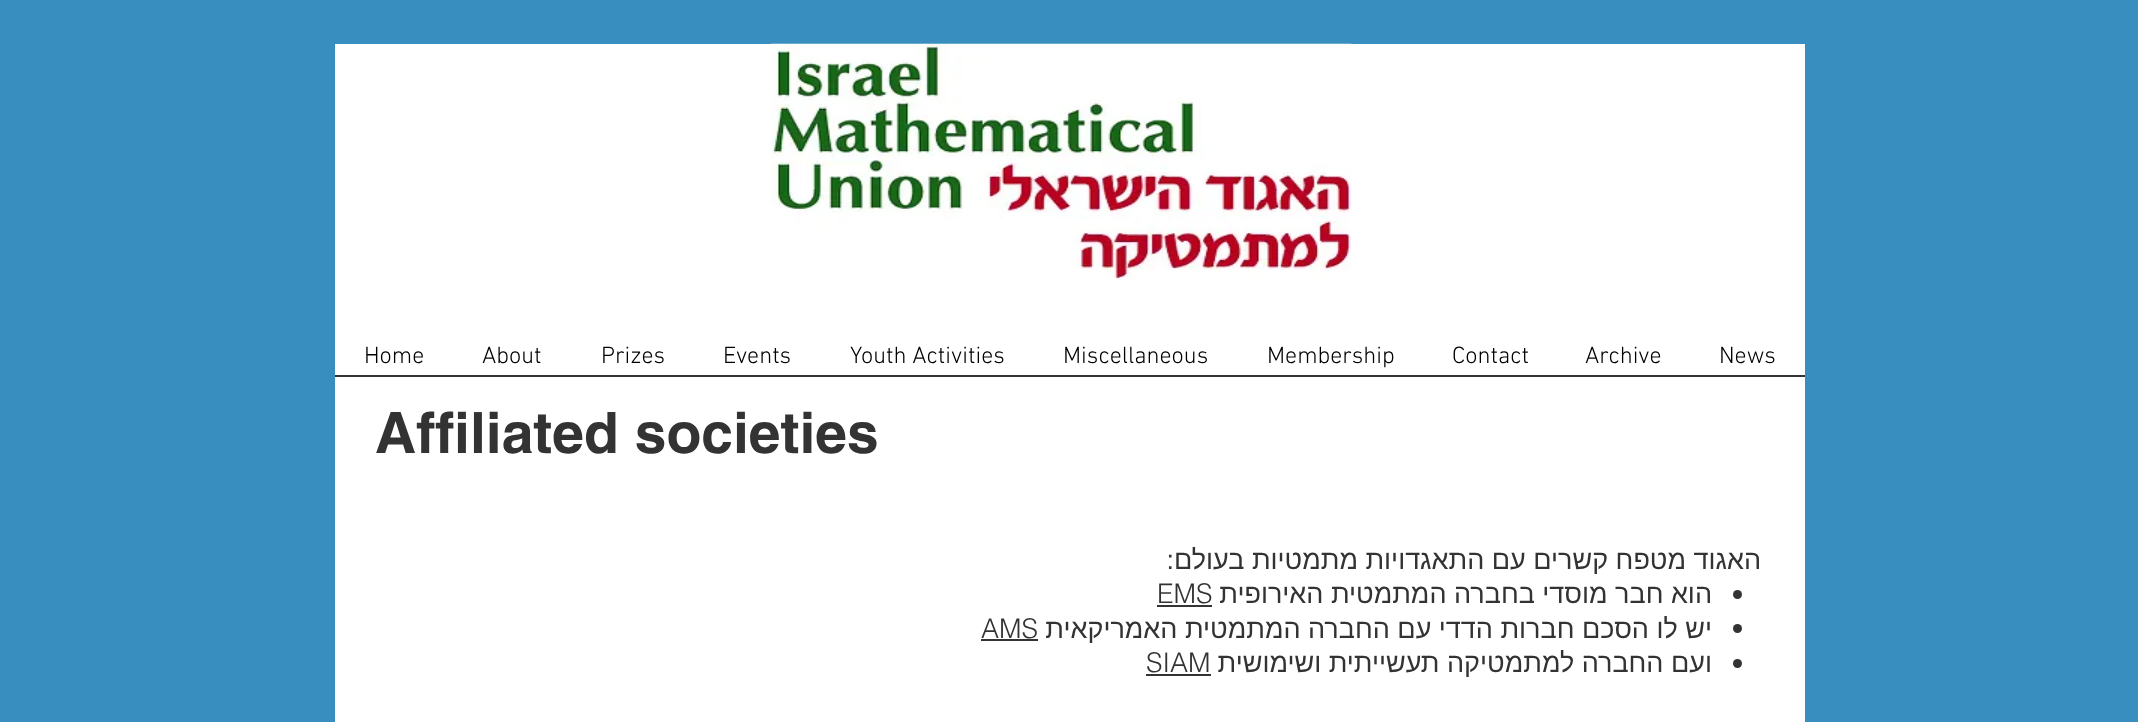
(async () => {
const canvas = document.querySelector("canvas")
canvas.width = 2138
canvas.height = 722
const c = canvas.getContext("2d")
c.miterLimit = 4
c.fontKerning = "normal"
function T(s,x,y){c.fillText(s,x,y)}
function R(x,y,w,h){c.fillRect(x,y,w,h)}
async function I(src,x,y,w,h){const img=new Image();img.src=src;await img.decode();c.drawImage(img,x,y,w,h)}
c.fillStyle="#388fbf"
R(0,0,2138,722)
c.fillStyle="#fff"
R(335,44,1470,678)
await I("1.png",771,43,581,237)
c.font="300 24px 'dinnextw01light'"
c.fillStyle="#000"
T("News",1719,363)
T("Archive",1585,363)
T("Contact",1452,363)
T("Membership",1267,363)
T("Miscellaneous",1063,363)
T("Youth Activities",850,363)
T("Events",723,363)
T("Prizes",601,363)
T("About",482,363)
T("Home",364,363)
c.fillStyle="#333"
R(335,375,1470,2)
c.font="bold 57px helvetica"
T("Affiliated societies",375,453)
c.direction="rtl"
c.font="27px Liberation Sans"
T("האגוד מטפח קשרים עם התאגדויות מתמטיות בעולם:",1761,569)
c.beginPath()
c.arc(1737.5,594.5,4.5,0,7)
c.fill()
T("הוא חבר מוסדי בחברה המתמטית האירופית",1712,603)
c.direction="ltr"
c.font="300 27px helvetica"
T("EMS",1157,603)
R(1157,605,55,2)
c.beginPath()
c.arc(1737.5,628.5,4.5,0,7)
c.fill()
c.direction="rtl"
c.font="27px Liberation Sans"
T("יש לו הסכם חברות הדדי עם החברה המתמטית האמריקאית",1712,638)
c.direction="ltr"
c.font="300 27px helvetica"
T("AMS",981,638)
R(981,639,57,2)
c.beginPath()
c.arc(1737.5,663.5,4.5,0,7)
c.fill()
c.direction="rtl"
c.font="27px Liberation Sans"
T("ועם החברה למתמטיקה תעשייתית ושימושית",1712,672)
c.direction="ltr"
c.font="300 27px helvetica"
T("SIAM",1146,672)
R(1146,674,65,2)
})()
